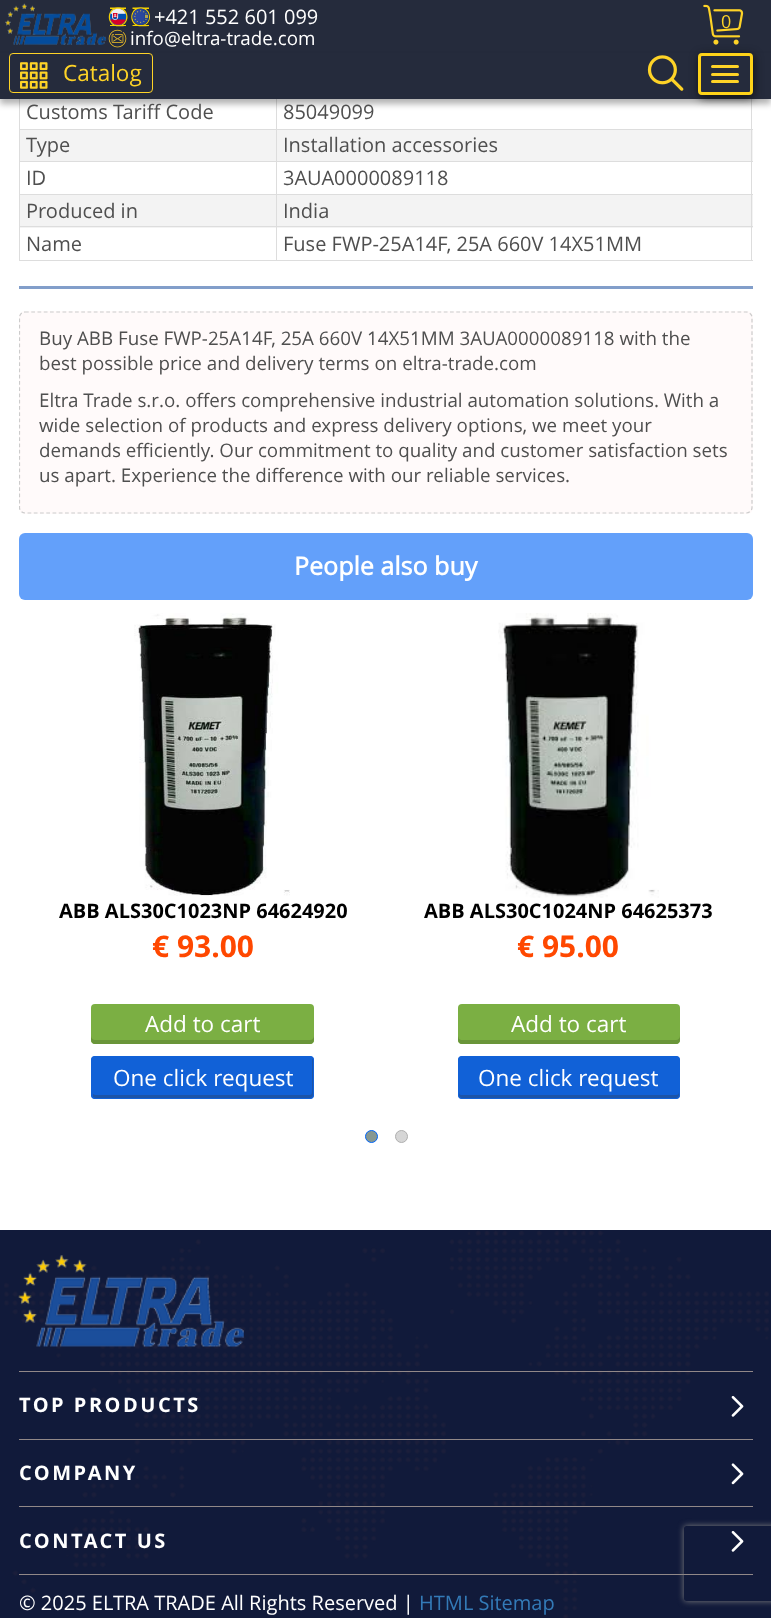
(async () => {
const canvas = document.querySelector("canvas")
canvas.width = 771
canvas.height = 1618
const c = canvas.getContext("2d")
c.miterLimit = 4
c.fontKerning = "normal"
function T(s,x,y){c.fillText(s,x,y)}
function R(x,y,w,h){c.fillRect(x,y,w,h)}
function Q(x,y,w,h,r){c.beginPath();c.roundRect(x,y,w,h,r);c.fill()}
async function I(src,x,y,w,h){const img=new Image();img.src=src;await img.decode();c.drawImage(img,x,y,w,h)}
let path
c.fillStyle="#fff"
R(0,0,771,1618)
c.fillStyle="#252b3c"
R(0,0,771,53)
await I("1.png",5,3,101,42)
c.fillStyle="#f6d200"
path = new Path2D("M140 7.5h9v18.5c-4 0-9 1-12.5-.5c-8.5-4-6-18 3.5-18zm0 1.5h9v16c-3.5 0-9 .5-12-.5c-7-3.5-5.5-15.5 3-15.5z")
c.fill(path,"evenodd")
R(133,25,16,1)
path = new Path2D("M132.5 7.5h8.5c5 0 9 4 9 9.5c0 5-4 9-9 9h-8.5zm0 1.5h8.5c4.5 0 8 3.5 8 8c0 4.5-3.5 8-8 8h-8.5z")
c.fill(path,"evenodd")
c.fillStyle="#214391"
path = new Path2D("M140.5 8.5v16.5c11 0 11-16.5 0-16.5z")
c.fill(path)
await I("2.png",132,8,12,17)
c.font="20px Open Sans"
c.fillStyle="#fff"
T("+421 552 601 099",154,24)
c.fillStyle="#f6d200"
path = new Path2D("M117.5 7.5h8.5v18.5c-3.5 0-8.5 1-12-.5c-8.5-4-6-18 3.5-18zm0 1.5h8.5v16c-3 0-8.5 .5-11.5-.5c-7-3.5-5.5-15.5 3-15.5z")
c.fill(path,"evenodd")
R(119,25,7,1)
path = new Path2D("M110 7.5h9c4.5 0 8.5 4 8.5 9.5c0 5-4 9-8.5 9h-9zm0 1.5h9c4 0 7 3.5 7 8c0 4.5-3 8-7 8h-9z")
c.fill(path,"evenodd")
c.fillStyle="#f0f0f0"
path = new Path2D("M126 16.5c0 11-16 11-16 0c0-10.5 16-10.5 16 0z")
c.fill(path)
await I("6.png",110,13,17,12)
await I("15.png",110,19,16,6)
await I("7.png",112,13,7,8)
c.fillStyle="#d80027"
path = new Path2D("M113 13v5h4l.5-5z")
c.fill(path)
c.fillStyle="#b3a44e"
R(145,15,3,3)
await I("3.png",136,11,3,2)
await I("4.png",140,10,2,2)
await I("5.png",143,11,2,2)
await I("8.png",113,13,4,5)
await I("9.png",134,13,2,2)
await I("10.png",145,13,2,2)
await I("11.png",134,15,2,3)
await I("12.png",113,17,5,3)
await I("13.png",134,18,2,2)
await I("14.png",145,18,2,2)
await I("16.png",136,20,2,3)
await I("17.png",140,21,2,2)
await I("18.png",143,20,2,3)
await I("19.png",108,29,19,19)
c.font="18.75px Open Sans"
c.fillStyle="#fff"
T("info@eltra-trade.com",130,45)
await I("20.png",703,4,41,41)
c.font="18px Open Sans"
c.fillStyle="#fed327"
T("0",721,28)
c.fillStyle="#ddd"
R(276,129,477,1)
c.fillStyle="#f3f3f3"
R(20,130,733,31)
c.fillStyle="#ddd"
R(276,161,477,1)
R(276,194,477,1)
c.fillStyle="#f3f3f3"
R(20,195,733,33)
c.fillStyle="#ddd"
R(276,226,477,1)
R(751,226,1,35)
R(276,260,477,1)
R(276,226,1,35)
R(19,226,259,1)
R(276,194,1,34)
R(19,194,259,1)
R(276,161,1,34)
R(19,161,259,1)
R(276,129,1,34)
R(19,129,259,1)
R(276,95,1,35)
R(19,260,259,1)
R(19,226,1,35)
R(19,194,1,34)
R(19,161,1,34)
R(19,95,1,68)
R(751,194,1,34)
R(751,161,1,34)
R(751,95,1,68)
c.fillStyle="#0000004d"
c.filter="blur(3px)"
c.beginPath()
c.rect(0,58,771,46)
c.fill()
c.filter="none"
c.fillStyle="#252b3c"
R(0,53,771,46)
c.beginPath()
c.roundRect(9.5,53.5,143,39,3.5)
c.strokeStyle="#fed327"
c.stroke()
await I("21.png",20,62,28,27)
c.font="22.5px Open Sans"
c.fillStyle="#fed327"
T("Catalog",63,81)
c.save()
path = new Path2D("M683 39h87v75h-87zm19 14h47c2 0 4 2 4 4v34c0 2-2 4-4 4h-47c-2 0-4-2-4-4v-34c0-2 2-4 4-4z")
c.clip(path,"evenodd")
c.fillStyle="#0a0a0ac9"
c.filter="blur(5px)"
c.beginPath()
c.roundRect(699,55,55,43,4)
c.fill()
c.filter="none"
c.restore()
await I("22.png",647,55,37,36)
c.beginPath()
c.roundRect(699.5,54.5,52,39,2.5)
c.strokeStyle="#fed319"
c.lineWidth=3
c.stroke()
Q(711,65,28,3,1.5)
Q(711,73,28,3,1.5)
Q(711,80,28,3,1.5)
c.font="20px Open Sans"
c.fillStyle="#4f4f4f"
T("Сustoms Tariff Code",26,119)
T("85049099",283,119)
T("Type",26,152)
T("Installation accessories",283,152)
T("ID",26,185)
T("3AUA0000089118",283,185)
T("Produced in",26,218)
T("India",283,218)
T("Name",26,251)
T("Fuse FWP-25A14F, 25A 660V 14X51MM",283,251)
c.fillStyle="#829eca"
R(19,286,734,3)
c.fillStyle="#fffafa"
Q(19,311,734,203,6)
c.save()
c.beginPath()
c.rect(19,95,734,438)
c.clip()
path = new Path2D("M25 312h721c3.5 0 6 2.5 6 5.5v190c0 3-2.5 5.5-6 5.5h-721c-3 0-5.5-2.5-5.5-5.5v-190c0-3 2.5-5.5 5.5-5.5z")
c.strokeStyle="#ccc"
c.lineWidth=1.2
c.setLineDash([3.75,2.5])
c.stroke(path)
c.restore()
c.font="18.75px Open Sans"
c.fillStyle="#4f4f4f"
T("Buy ABB Fuse FWP-25A14F, 25A 660V 14X51MM 3AUA0000089118 with the",39,345)
T("best possible price and delivery terms on eltra-trade.com",39,370)
T("Eltra Trade s.r.o. offers comprehensive industrial automation solutions. With a",39,407)
T("wide selection of products and express delivery options, we meet your",39,432)
T("demands efficiently. Our commitment to quality and customer satisfaction sets",39,457)
T("us apart. Experience the difference with our reliable services.",39,482)
c.fillStyle="#63a0fa"
Q(19,533,734,67,6)
c.font="bold 25px Open Sans"
c.fillStyle="#fff"
T("People also buy",294,575)
await I("23.png",134,613,156,283)
c.font="bold 20px 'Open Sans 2'"
c.fillStyle="#000"
T("ABB ALS30C1023NP 64624920",59,918)
c.font="bold 30px 'Open Sans 2'"
c.fillStyle="#ff4800"
T("€ 93.00",152,957)
c.fillStyle="#7baf43"
Q(91,1004,223,40,4)
c.fillStyle="#699539"
path = new Path2D("M91 1036v4c0 2 2 4 4 4h215c2 0 4-2 4-4v-4c0 2-2 4-4 4h-215c-2 0-4-2-4-4z")
c.fill(path)
c.font="22.5px Open Sans"
c.fillStyle="#fff"
T("Add to cart",145,1032)
c.fillStyle="#1161d7"
Q(91,1056,223,43,4)
c.fillStyle="#1c54a8"
path = new Path2D("M93 1094v2c0 1 1 2 3 2h214c2 0 3-1 3-2v-36c0 0 0-1-1-2v34c0 2-1 3-2 3h-215z")
c.fill(path)
c.beginPath()
c.roundRect(91.5,1056.5,222,42,3.5)
c.strokeStyle="#1161d7"
c.lineWidth=1
c.stroke()
c.fillStyle="#fff"
T("One click request",113,1086)
await I("24.png",498,613,161,285)
c.font="bold 20px 'Open Sans 2'"
c.fillStyle="#000"
T("ABB ALS30C1024NP 64625373",424,918)
c.font="bold 30px 'Open Sans 2'"
c.fillStyle="#ff4800"
T("€ 95.00",517,957)
c.fillStyle="#7baf43"
Q(458,1004,222,40,4)
c.fillStyle="#699539"
path = new Path2D("M458 1036v4c0 2 2 4 4 4h214c2 0 4-2 4-4v-4c0 2-2 4-4 4h-215l-2-1z")
c.fill(path)
c.font="22.5px Open Sans"
c.fillStyle="#fff"
T("Add to cart",511,1032)
c.fillStyle="#1161d7"
Q(458,1056,222,43,4)
c.fillStyle="#1c54a8"
path = new Path2D("M459 1092v4c0 1 1 2 3 2h214c2 0 3-1 3-2v-4c0 2-1 3-3 3h-215c-1 0-2-1-2-3z")
c.fill(path)
c.beginPath()
c.roundRect(458.5,1056.5,221,42,3.5)
c.stroke()
c.fillStyle="#fff"
T("One click request",478,1086)
c.fillStyle="#869791"
c.beginPath()
c.arc(371.5,1136.5,6,0,7)
c.fill()
c.strokeStyle="#0065fb"
c.stroke()
c.fillStyle="#d6d6d6"
c.beginPath()
c.arc(401.5,1136.5,6,0,7)
c.fill()
c.strokeStyle="#afafaf"
c.stroke()
c.fillStyle="#111a3a"
R(0,1230,771,388)
await I("25.png",4,1230,765,388)
c.fillStyle="#918888"
R(19,1371,734,1)
await I("26.png",18,1255,226,92)
R(19,1439,734,1)
c.letterSpacing="2.5px"
c.font="bold 20px 'Open Sans 2'"
c.fillStyle="#fff"
T("TOP PRODUCTS",19,1412)
await I("27.png",731,1396,13,21)
c.fillStyle="#918888"
R(19,1506,734,1)
c.fillStyle="#fff"
T("COMPANY",19,1480)
await I("28.png",731,1463,13,22)
c.fillStyle="#918888"
R(19,1574,734,1)
c.fillStyle="#fff"
T("CONTACT US",19,1548)
await I("27.png",731,1531,13,21)
c.letterSpacing="0px"
c.font="20px Open Sans"
T("© 2025 ELTRA TRADE All Rights Reserved |",19,1610)
c.fillStyle="#337ab7"
T("HTML Sitemap",419,1610)
c.save()
path = new Path2D("M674 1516h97v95h-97zm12.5 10h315c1.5 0 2.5 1 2.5 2.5v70c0 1.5-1 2.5-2.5 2.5h-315c-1.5 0-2.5-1-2.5-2.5v-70c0-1.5 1-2.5 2.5-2.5z")
c.clip(path,"evenodd")
c.fillStyle="#808080"
c.filter="blur(3px)"
c.beginPath()
c.roundRect(684,1526,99,75,2.5)
c.fill()
c.filter="none"
c.restore()
})()
